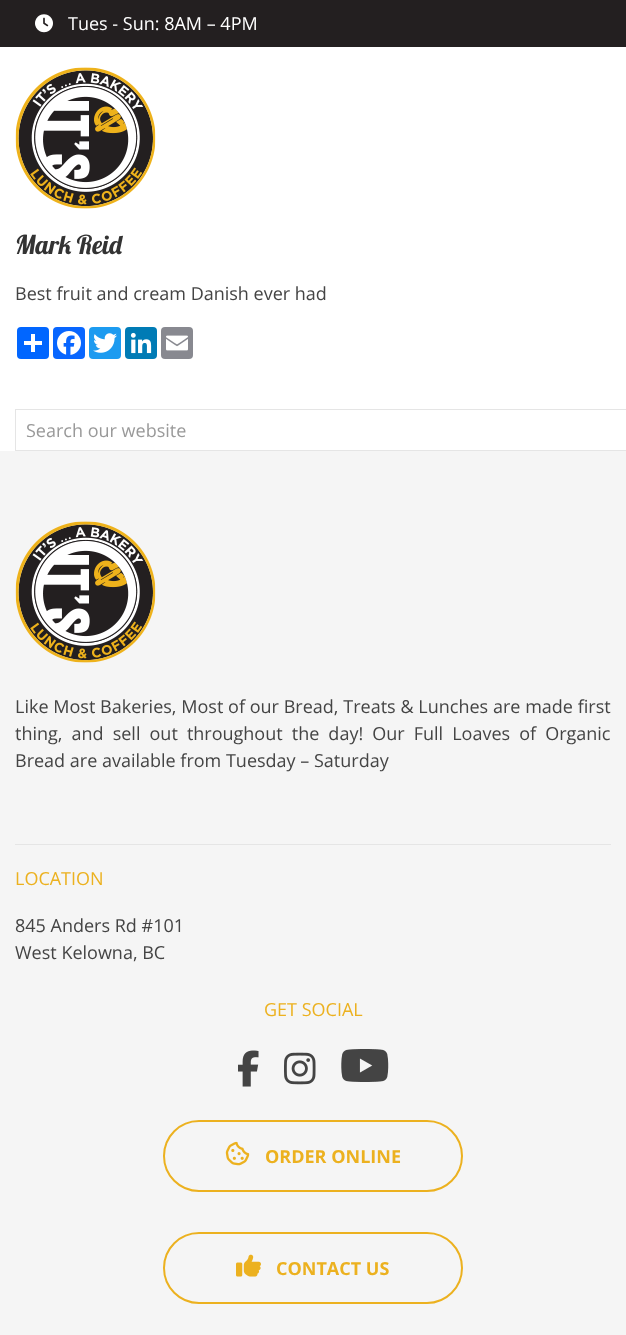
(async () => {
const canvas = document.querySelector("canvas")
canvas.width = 626
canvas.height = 1335
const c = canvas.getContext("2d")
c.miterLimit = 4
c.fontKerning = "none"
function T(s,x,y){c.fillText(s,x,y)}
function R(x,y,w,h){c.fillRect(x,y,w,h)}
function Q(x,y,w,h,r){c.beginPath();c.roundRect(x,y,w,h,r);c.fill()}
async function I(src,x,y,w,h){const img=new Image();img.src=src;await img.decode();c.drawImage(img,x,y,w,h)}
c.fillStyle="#fff"
R(0,0,626,1335)
c.fillStyle="#231f20"
R(0,0,626,47)
await I("1.png",35,14,18,19)
c.font="18px Open Sans"
c.fillStyle="#fff"
T("Tues - Sun: 8AM – 4PM",68,30)
await I("2.png",15,67,141,142)
c.font="26px Lobster"
c.fillStyle="#333"
T("Mark Reid",15,254)
c.font="18px Open Sans"
c.fillStyle="#444"
T("Best fruit and cream Danish ever had",15,300)
c.fillStyle="#0166ff"
Q(17,327,32,32,4)
c.fillStyle="#fff"
R(31,334,4,18)
R(24,341,18,4)
c.fillStyle="#0866ff"
Q(53,327,32,32,4)
await I("3.png",57,331,24,24)
c.fillStyle="#1d9bf0"
Q(89,327,32,32,4)
await I("4.png",93,333,24,20)
c.fillStyle="#007bb5"
Q(125,327,32,32,4)
await I("5.png",130,332,22,22)
c.fillStyle="#888990"
Q(161,327,32,32,4)
await I("6.png",166,335,22,16)
c.strokeStyle="#e5e5e5"
c.strokeRect(15.5,409.5,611,41)
c.fillStyle="#999"
T("Search our website",26,437)
c.fillStyle="#f5f5f5"
R(0,451,626,884)
await I("7.png",15,521,141,142)
c.wordSpacing="0.1px"
c.fillStyle="#444"
T("Like Most Bakeries, Most of our Bread, Treats & Lunches are made first",15,713)
c.wordSpacing="4.4px"
T("thing, and sell out throughout the day! Our Full Loaves of Organic",15,740)
c.wordSpacing="0px"
T("Bread are available from Tuesday – Saturday",15,767)
c.fillStyle="#e5e5e5"
R(15,844,596,1)
c.fillStyle="#ecb11f"
T("LOCATION",15,885)
c.fillStyle="#444"
T("845 Anders Rd #101",15,932)
T("West Kelowna, BC",15,959)
c.fillStyle="#ecb11f"
T("GET SOCIAL",264,1016)
await I("8.png",238,1050,21,37)
await I("9.png",284,1052,32,33)
await I("10.png",341,1049,48,33)
c.beginPath()
c.roundRect(164,1121,298,70,35)
c.strokeStyle="#ecb11f"
c.lineWidth=2
c.stroke()
await I("11.png",225,1141,25,25)
c.font="bold 18px Open Sans"
T("ORDER ONLINE",265,1163)
c.beginPath()
c.roundRect(164,1233,298,70,35)
c.stroke()
await I("12.png",236,1254,25,23)
T("CONTACT US",276,1275)
})()
